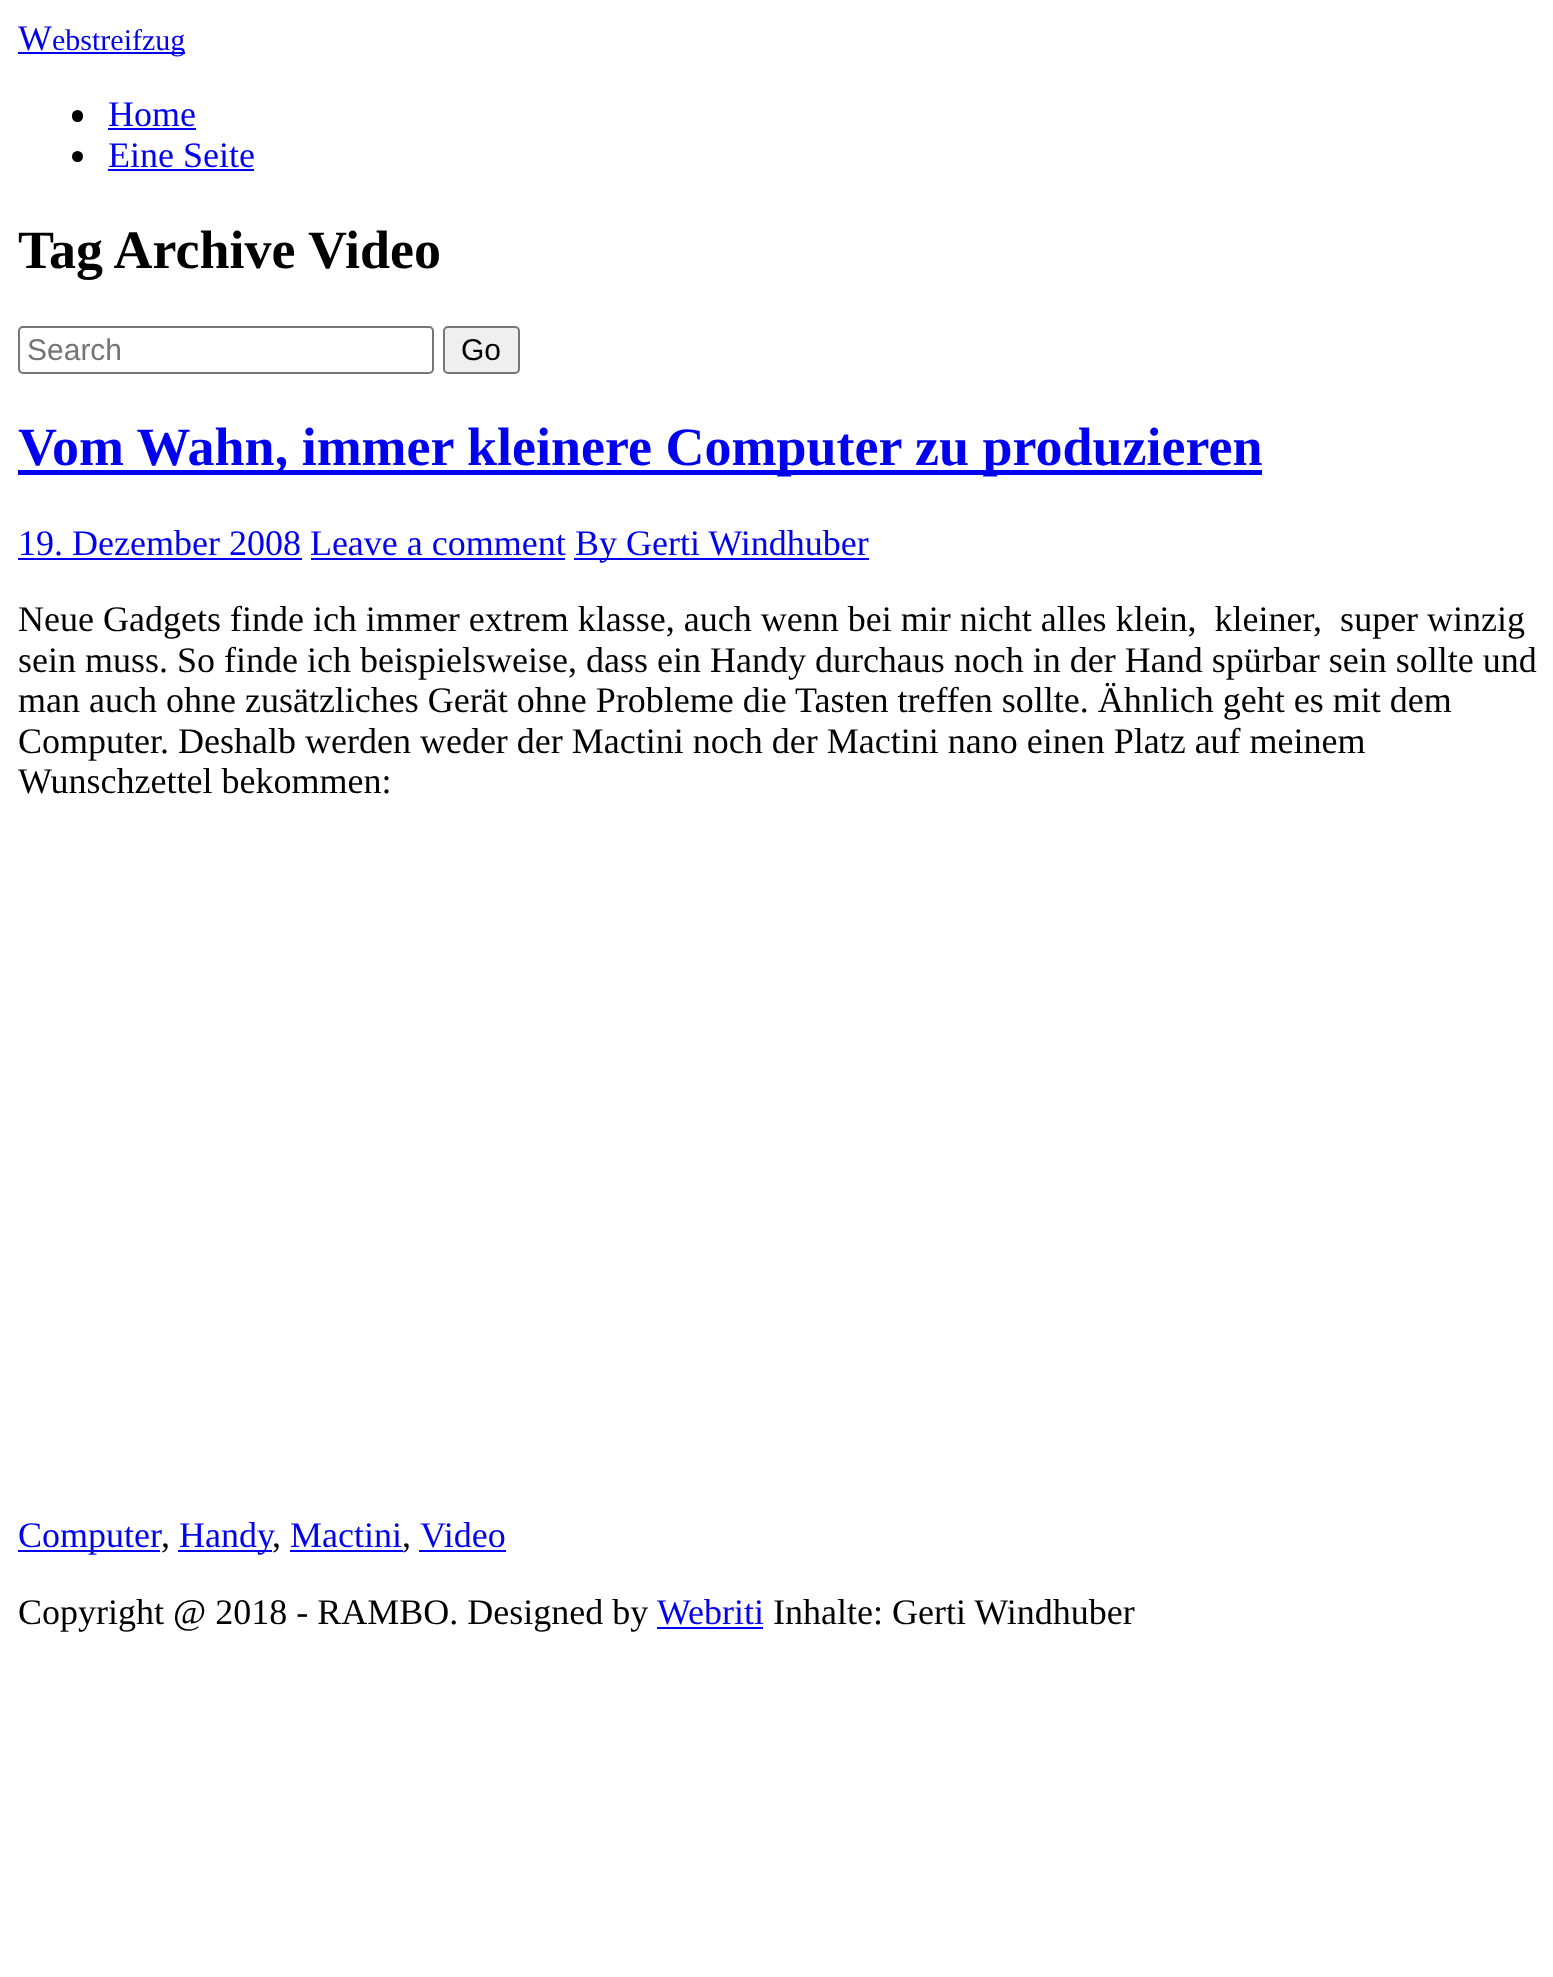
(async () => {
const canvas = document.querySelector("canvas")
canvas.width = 1553
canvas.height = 1977
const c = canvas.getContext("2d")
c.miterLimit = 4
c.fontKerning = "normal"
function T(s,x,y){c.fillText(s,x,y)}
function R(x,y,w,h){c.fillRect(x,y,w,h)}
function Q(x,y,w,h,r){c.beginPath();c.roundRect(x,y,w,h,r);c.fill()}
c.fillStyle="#fff"
R(0,0,1553,1977)
c.font="36px Liberation Serif"
c.fillStyle="#00e"
T("W",18,50)
R(18,52,167,2)
c.font="30px Liberation Serif"
T("ebstreifzug",52,50)
c.fillStyle="#000"
Q(72,110,11,12,5.5)
c.font="36px Liberation Serif"
c.fillStyle="#00e"
T("Home",108,126)
R(108,128,88,2)
c.fillStyle="#000"
c.beginPath()
c.arc(77.5,156.5,5.5,0,7)
c.fill()
c.fillStyle="#00e"
T("Eine Seite",108,167)
R(108,169,146,2)
c.font="bold 54px Liberation Serif"
c.fillStyle="#000"
T("Tag Archive",18,268)
T("Video",308,268)
c.beginPath()
c.roundRect(19,327,414,46,4)
c.strokeStyle="#767676"
c.lineWidth=2
c.stroke()
c.font="30px Liberation Sans"
c.fillStyle="#757575"
T("Search",27,360)
c.fillStyle="#efefef"
c.beginPath()
c.roundRect(444,327,75,46,4)
c.fill()
c.stroke()
c.fillStyle="#000"
T("Go",461,360)
c.fillStyle="#00e"
R(18,470,1244,5)
c.font="bold 54px Liberation Serif"
T("Vom Wahn, immer kleinere Computer zu produzieren",18,465)
c.font="36px Liberation Serif"
T("19. Dezember 2008 Leave a comment",18,555)
R(18,558,284,2)
R(574,558,295,2)
T("By Gerti Windhuber",575,555)
R(311,558,254,2)
c.fillStyle="#000"
T("Neue Gadgets finde ich immer extrem klasse, auch wenn bei mir nicht alles klein,  kleiner,  super winzig",18,631)
T("sein muss. So finde ich beispielsweise, dass ein Handy durchaus noch in der Hand spürbar sein sollte und",18,672)
T("man auch ohne zusätzliches Gerät ohne Probleme die Tasten treffen sollte. Ähnlich geht es mit dem",18,712)
T("Computer. Deshalb werden weder der Mactini noch der Mactini nano einen Platz auf meinem",18,753)
T("Wunschzettel bekommen:",18,793)
c.fillStyle="#00e"
R(18,1550,142,2)
T("Computer",18,1547)
c.fillStyle="#000"
T(",",161,1547)
c.fillStyle="#00e"
R(178,1550,94,2)
T("Handy",179,1547)
c.fillStyle="#000"
T(",",272,1547)
c.fillStyle="#00e"
T("Mactini",290,1547)
c.fillStyle="#000"
T(",",402,1547)
c.fillStyle="#00e"
R(290,1550,113,2)
R(419,1550,87,2)
T("Video",420,1547)
c.fillStyle="#000"
T("Copyright @ 2018 - RAMBO. Designed by",18,1624)
c.fillStyle="#00e"
T("Webriti",657,1624)
R(657,1627,106,2)
c.fillStyle="#000"
T("Inhalte: Gerti Windhuber",773,1624)
})()
